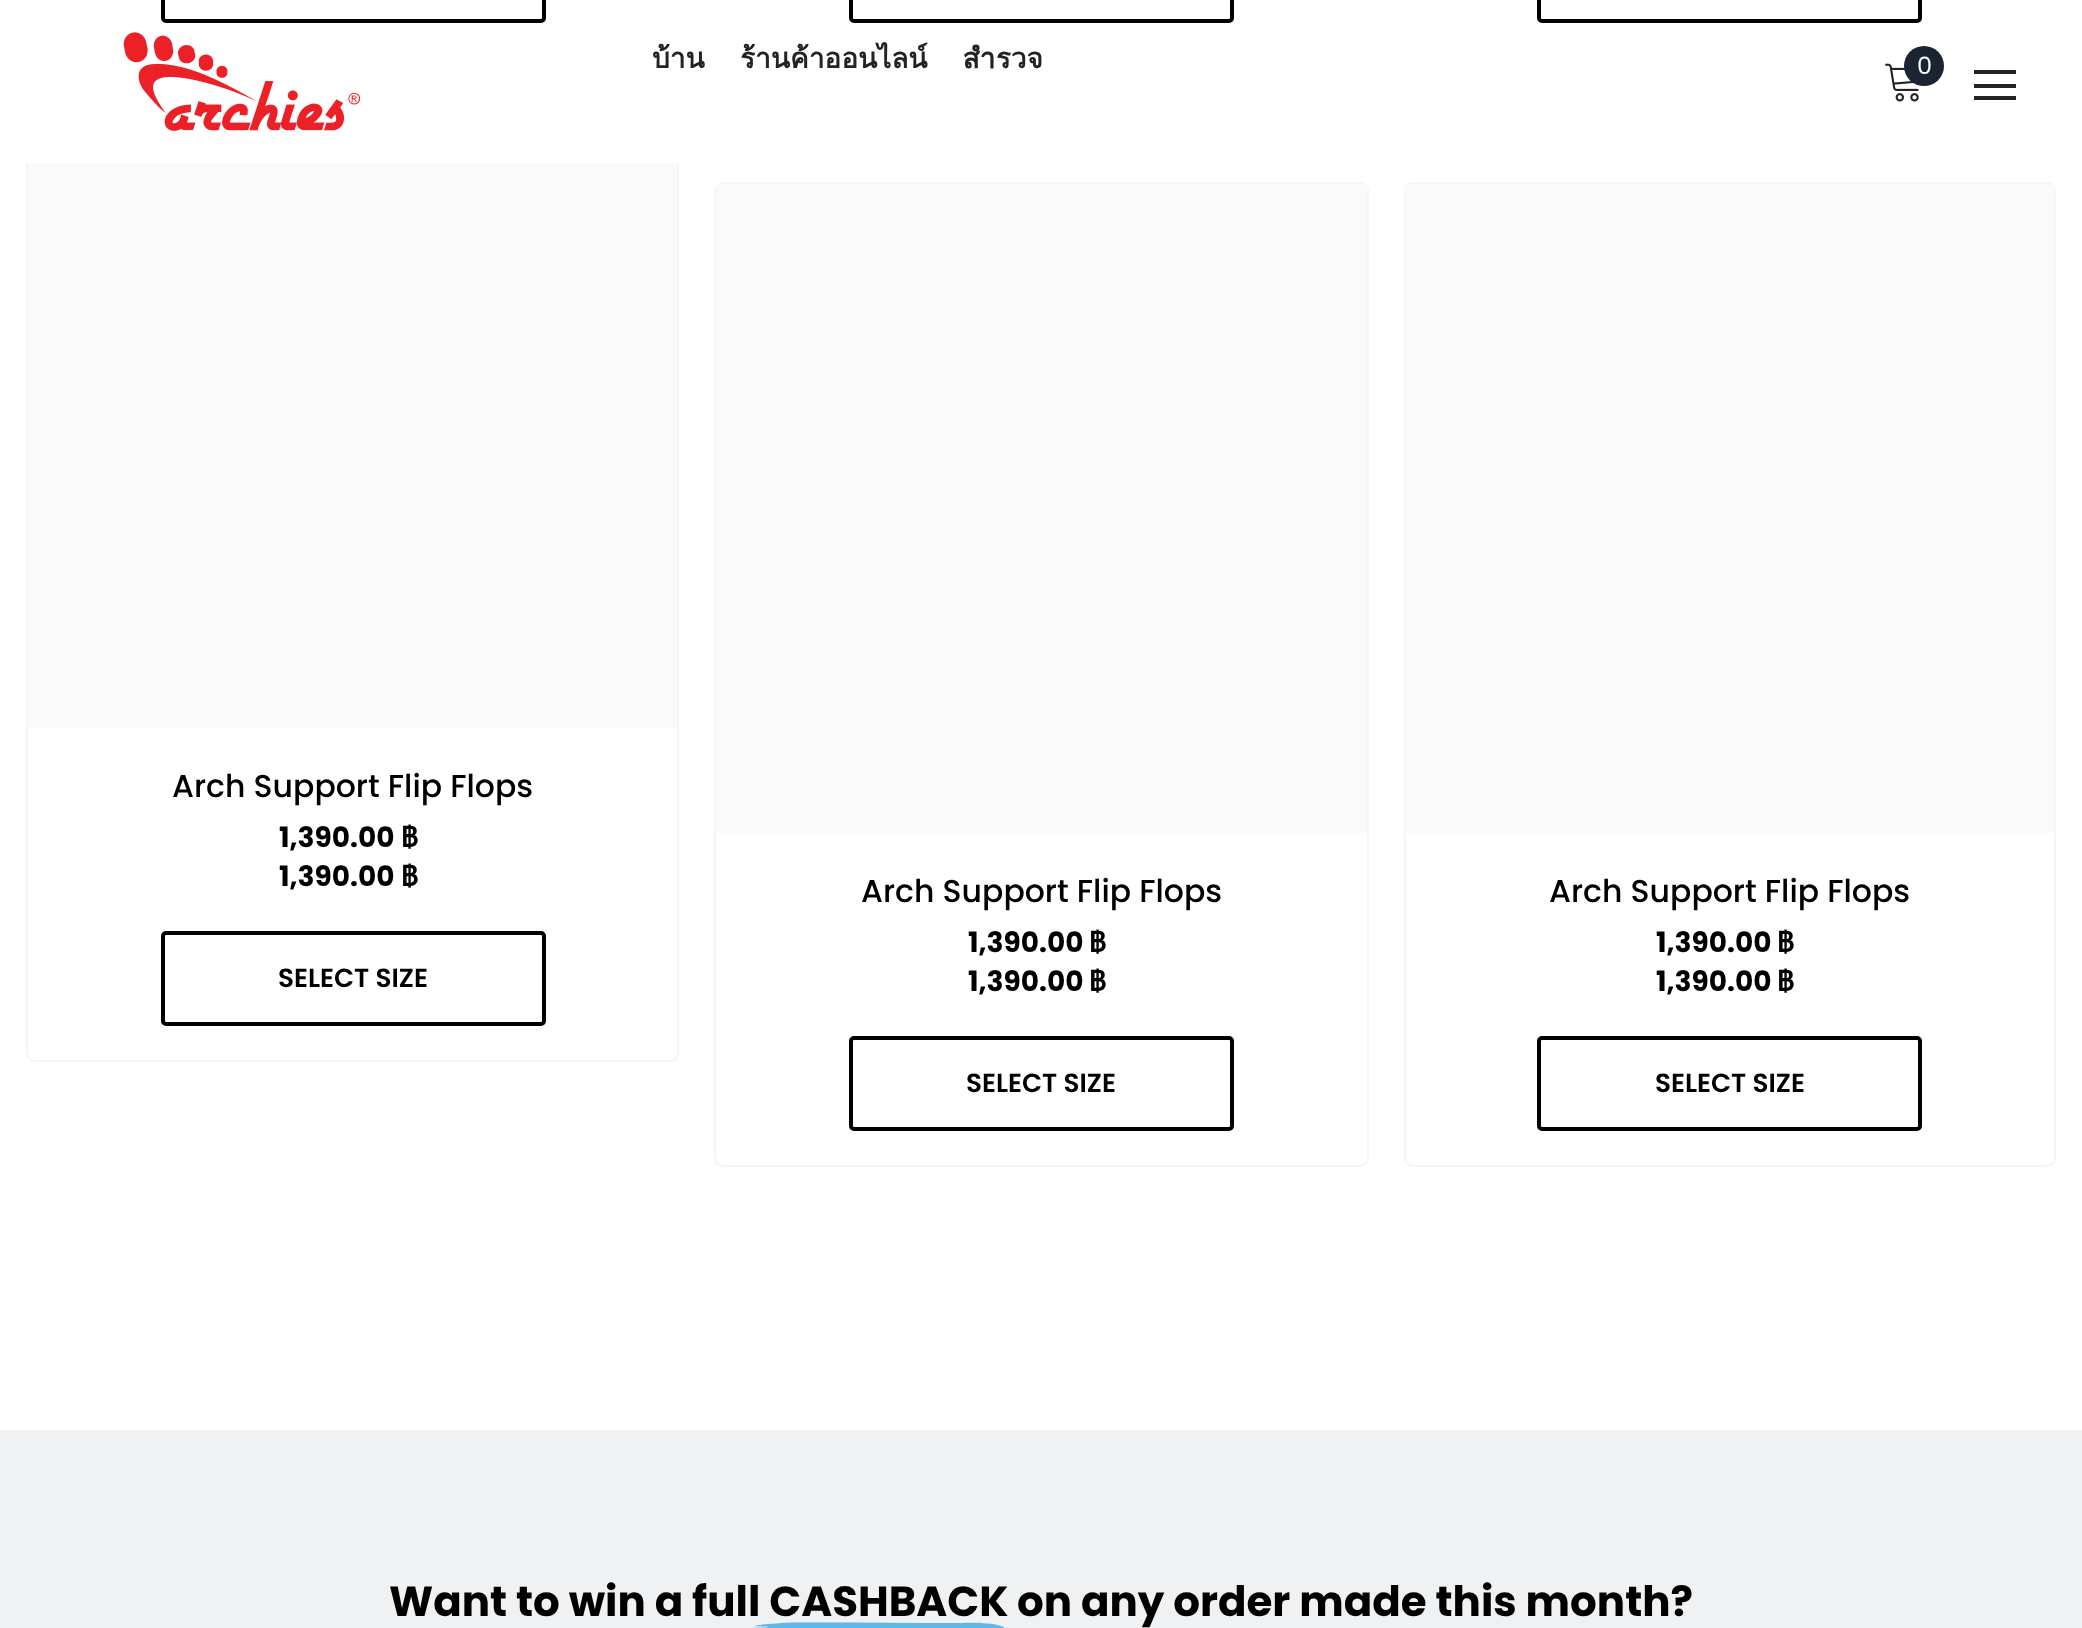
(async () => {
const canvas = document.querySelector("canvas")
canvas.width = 2082
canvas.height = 1628
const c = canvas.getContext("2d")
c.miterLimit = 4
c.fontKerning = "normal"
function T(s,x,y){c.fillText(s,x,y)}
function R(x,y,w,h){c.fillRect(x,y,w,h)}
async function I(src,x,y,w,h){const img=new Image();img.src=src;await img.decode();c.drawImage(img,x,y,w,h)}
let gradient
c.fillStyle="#fff"
R(0,0,2082,1628)
c.beginPath()
c.roundRect(27,78,651,983,8)
c.strokeStyle="#f5f5f5"
c.lineWidth=2
c.stroke()
R(26,77,653,86)
await I("1.png",123,32,238,99)
c.font="bold 28px Loma"
c.fillStyle="#232323"
T("บ้าน",652,68)
T("ร้านค้าออนไลน์",740,68)
T("สำรวจ",963,68)
await I("2.png",1885,63,34,39)
c.fillStyle="#1a2531"
c.beginPath()
c.arc(1924,66,20,0,7)
c.fill()
c.font="24px Poppins"
c.fillStyle="#fff"
T("0",1917,74)
c.fillStyle="#232323"
R(1974,70,42,4)
R(1974,84,42,4)
R(1974,96,42,4)
c.beginPath()
c.roundRect(163,-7,381,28,3)
c.strokeStyle="#000"
c.lineWidth=4
c.stroke()
c.beginPath()
c.roundRect(851,-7,381,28,3)
c.stroke()
c.beginPath()
c.roundRect(1539,-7,381,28,3)
c.stroke()
gradient = c.createLinearGradient(-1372,403,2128,403)
gradient.addColorStop(.04,"#fafafa")
gradient.addColorStop(.25,"#f1f2f3")
gradient.addColorStop(.36,"#fafafa")
c.fillStyle = gradient
R(28,163,649,565)
c.font="500 31.5px Poppins"
c.fillStyle="#000"
T("Arch Support Flip Flops",172,797)
c.font="bold 28px Poppins"
T("1,390.00",279,847)
c.font="bold 28px Loma"
T("฿",401,847)
c.font="bold 28px Poppins"
T("1,390.00",279,886)
c.font="bold 28px Loma"
T("฿",401,886)
c.beginPath()
c.roundRect(163,933,381,91,3)
c.stroke()
c.font="600 26.25px Poppins"
T("SELECT SIZE",278,987)
c.beginPath()
c.roundRect(715,183,653,983,8)
c.strokeStyle="#f5f5f5"
c.lineWidth=2
c.stroke()
gradient = c.createLinearGradient(-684,508,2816,508)
gradient.addColorStop(.04,"#fafafa")
gradient.addColorStop(.25,"#f1f2f3")
gradient.addColorStop(.36,"#fafafa")
c.fillStyle = gradient
R(716,184,651,649)
c.font="500 31.5px Poppins"
c.fillStyle="#000"
T("Arch Support Flip Flops",861,902)
c.font="bold 28px Poppins"
T("1,390.00",968,952)
c.font="bold 28px Loma"
T("฿",1089,952)
c.font="bold 28px Poppins"
T("1,390.00",968,991)
c.font="bold 28px Loma"
T("฿",1089,991)
c.beginPath()
c.roundRect(851,1038,381,91,3)
c.strokeStyle="#000"
c.lineWidth=4
c.stroke()
c.font="600 26.25px Poppins"
T("SELECT SIZE",966,1092)
c.beginPath()
c.roundRect(1405,183,650,983,8)
c.strokeStyle="#f5f5f5"
c.lineWidth=2
c.stroke()
gradient = c.createLinearGradient(5.2,508,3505,508)
gradient.addColorStop(.04,"#fafafa")
gradient.addColorStop(.25,"#f1f2f3")
gradient.addColorStop(.36,"#fafafa")
c.fillStyle = gradient
R(1405,184,650,649)
c.font="500 31.5px Poppins"
c.fillStyle="#000"
T("Arch Support Flip Flops",1549,902)
c.font="bold 28px Poppins"
T("1,390.00",1656,952)
c.font="bold 28px Loma"
T("฿",1777,952)
c.font="bold 28px Poppins"
T("1,390.00",1656,991)
c.font="bold 28px Loma"
T("฿",1777,991)
c.beginPath()
c.roundRect(1539,1038,381,91,3)
c.strokeStyle="#000"
c.lineWidth=4
c.stroke()
c.font="600 26.25px Poppins"
T("SELECT SIZE",1655,1092)
c.fillStyle="#eff1f2"
R(0,1430,2082,198)
c.font="bold 42px Poppins"
c.fillStyle="#000"
T("Want to win a full CASHBACK",389,1616)
T("on any order made this month?",1017,1616)
await I("3.png",752,1622,253,6)
})()
